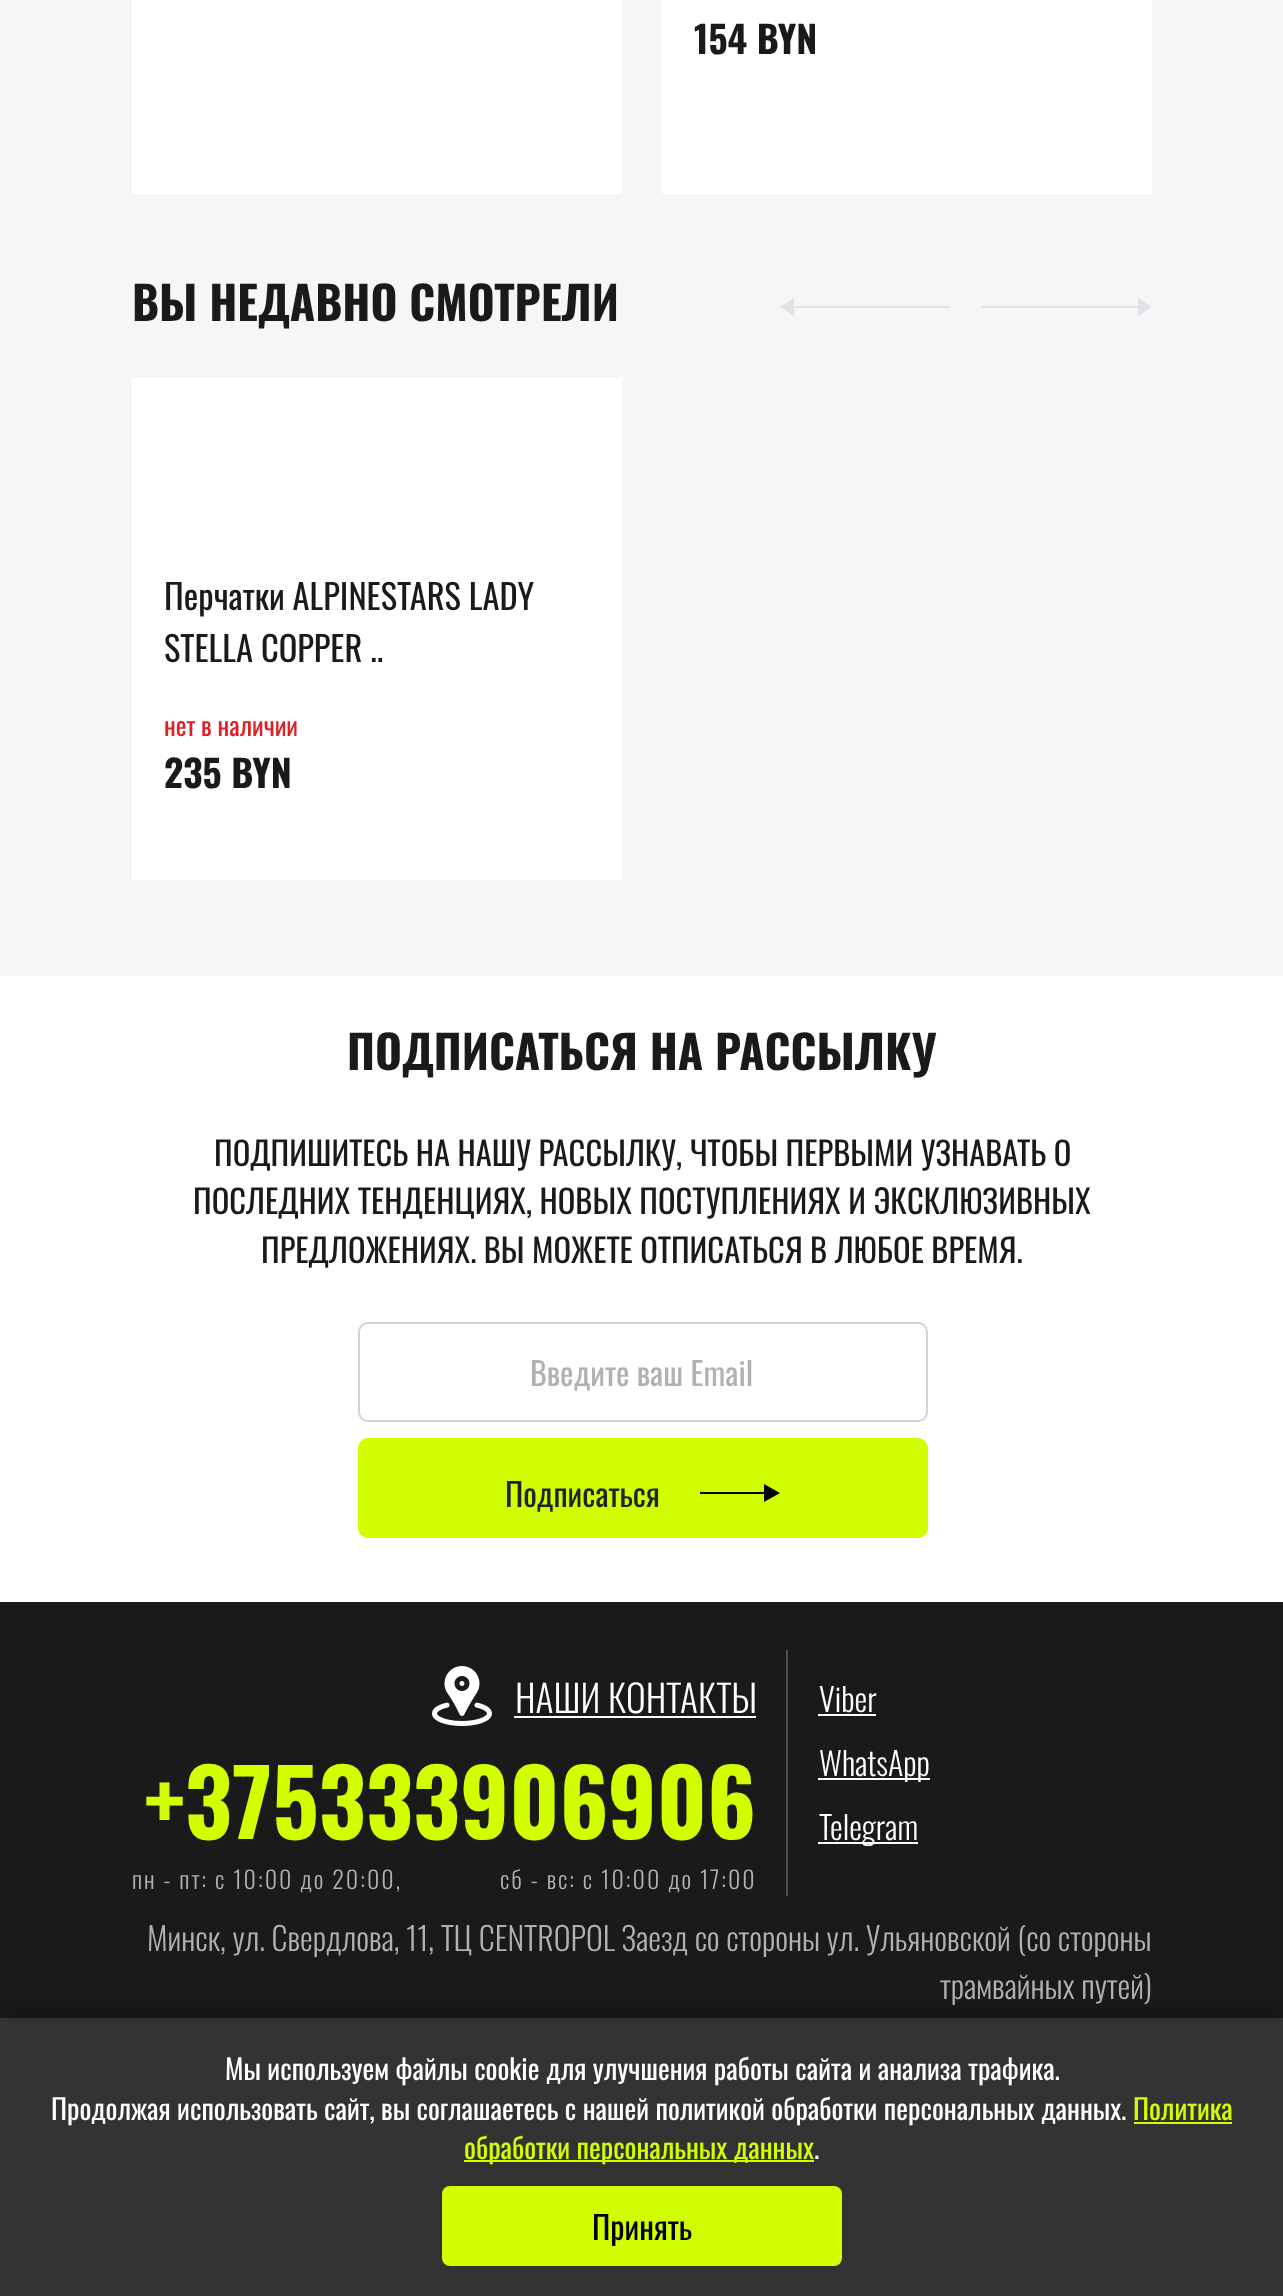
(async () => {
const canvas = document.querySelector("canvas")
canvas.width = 1283
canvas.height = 2296
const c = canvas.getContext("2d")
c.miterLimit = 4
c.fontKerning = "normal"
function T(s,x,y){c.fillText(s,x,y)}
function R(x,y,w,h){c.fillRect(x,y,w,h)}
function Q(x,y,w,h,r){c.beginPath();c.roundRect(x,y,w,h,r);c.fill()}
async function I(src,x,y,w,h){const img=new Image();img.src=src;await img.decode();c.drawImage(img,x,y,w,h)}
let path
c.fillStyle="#fff"
R(0,0,1283,2296)
c.fillStyle="#f6f6f6"
R(0,0,1283,976)
c.fillStyle="#fff"
R(132,0,490,194)
R(662,0,490,194)
c.font="bold 37.5px Oswald"
c.fillStyle="#1a1a1a"
T("154 BYN",694,54)
c.font="bold 46.1px Oswald"
T("ВЫ НЕДАВНО СМОТРЕЛИ",132,321)
c.fillStyle="#dee2e6"
R(789,306,161,2)
path = new Path2D("M780 307l14-9v18z")
c.fill(path)
R(982,306,162,2)
path = new Path2D("M1152 307l-14 9v-18z")
c.fill(path)
c.fillStyle="#fff"
R(132,378,490,502)
c.font="34.5px Oswald"
c.fillStyle="#1a1a1a"
T("Перчатки ALPINESTARS LADY",164,610)
T("STELLA COPPER ..",164,662)
c.font="25.5px Oswald"
c.fillStyle="#e11f25"
T("нет в наличии",164,736)
c.font="bold 37.5px Oswald"
c.fillStyle="#1a1a1a"
T("235 BYN",164,788)
c.font="bold 46.1px Oswald"
T("ПОДПИСАТЬСЯ НА РАССЫЛКУ",347,1070)
c.font="32.6px Oswald"
T("ПОДПИШИТЕСЬ НА НАШУ РАССЫЛКУ, ЧТОБЫ ПЕРВЫМИ УЗНАВАТЬ О",214,1166)
T("ПОСЛЕДНИХ ТЕНДЕНЦИЯХ, НОВЫХ ПОСТУПЛЕНИЯХ И ЭКСКЛЮЗИВНЫХ",193,1214)
T("ПРЕДЛОЖЕНИЯХ. ВЫ МОЖЕТЕ ОТПИСАТЬСЯ В ЛЮБОЕ ВРЕМЯ.",261,1263)
c.beginPath()
c.roundRect(359,1323,568,98,9)
c.strokeStyle="#ced4da"
c.lineWidth=2
c.stroke()
c.font="32px Oswald"
c.fillStyle="#b1b1b1"
T("Введите ваш Email",530,1386)
c.fillStyle="#d1ff00"
c.beginPath()
c.roundRect(359,1439,568,98,9)
c.fill()
c.strokeStyle="#d1ff00"
c.stroke()
c.fillStyle="#212529"
T("Подписаться",505,1507)
c.fillStyle="#000"
R(700,1492,70,2)
path = new Path2D("M780 1493l-16 9v-18z")
c.fill(path)
c.fillStyle="#1a1a1a"
R(0,1602,1283,416)
c.fillStyle="#495057"
R(786,1650,2,246)
await I("1.png",432,1666,60,60)
c.font="300 37.5px Oswald"
c.fillStyle="#fff"
T("НАШИ КОНТАКТЫ",515,1713)
R(514,1716,242,2)
c.font="bold 91.5px Oswald"
c.fillStyle="#d1ff00"
T("+375333906906",144,1839)
c.letterSpacing="2px"
c.font="300 24px Oswald"
c.fillStyle="#b1b1b1"
T("пн - пт: с 10:00 до 20:00,",132,1889)
T("сб - вс: с 10:00 до 17:00",500,1889)
c.letterSpacing="0px"
c.font="300 32px Oswald"
c.fillStyle="#fff"
T("Viber",819,1712)
R(818,1714,58,2)
R(818,1778,112,2)
T("WhatsApp",819,1776)
R(818,1842,100,2)
T("Telegram",819,1840)
c.fillStyle="#b1b1b1"
T("Минск, ул. Свердлова, 11, ТЦ CENTROPOL Заезд со стороны ул. Ульяновской (со стороны",147,1951)
T("трамвайных путей)",940,1999)
c.fillStyle="#0000004d"
c.filter="blur(10px)"
c.beginPath()
c.rect(0,2014,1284,278)
c.fill()
c.filter="none"
c.fillStyle="#333"
R(0,2018,1283,278)
c.font="28px Oswald"
c.fillStyle="#fff"
T("Мы используем файлы cookie для улучшения работы сайта и анализа трафика.",225,2080)
T("Продолжая использовать сайт, вы соглашаетесь с нашей политикой обработки персональных данных.",51,2120)
c.fillStyle="#d1ff00"
T("Политика",1133,2120)
R(1134,2122,98,2)
R(464,2160,350,2)
T("обработки персональных данных",464,2159)
c.fillStyle="#fff"
T(".",814,2159)
c.fillStyle="#d1ff00"
Q(442,2186,400,80,8)
c.font="32px Oswald"
c.fillStyle="#000"
T("Принять",592,2240)
})()
